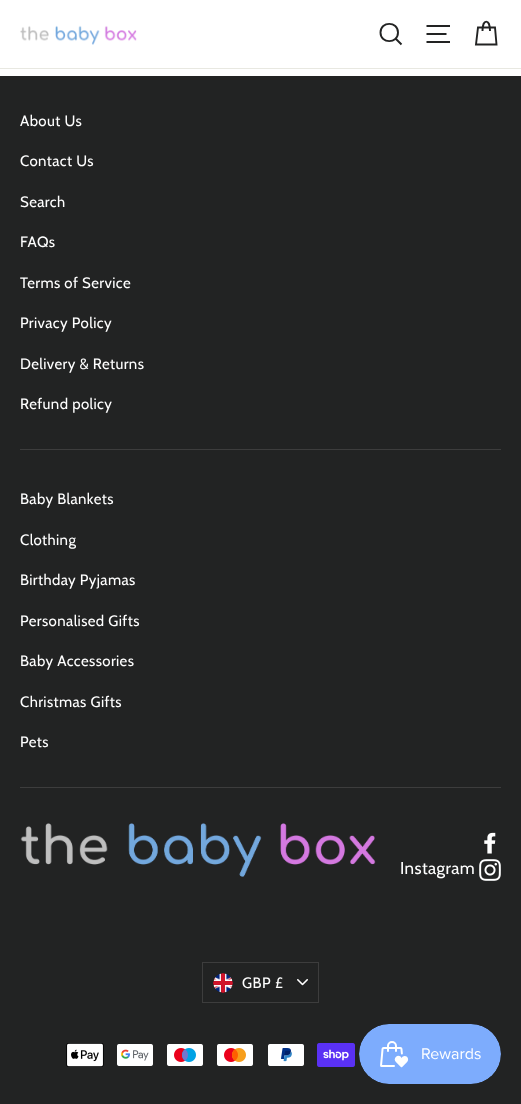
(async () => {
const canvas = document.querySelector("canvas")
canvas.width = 521
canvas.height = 1104
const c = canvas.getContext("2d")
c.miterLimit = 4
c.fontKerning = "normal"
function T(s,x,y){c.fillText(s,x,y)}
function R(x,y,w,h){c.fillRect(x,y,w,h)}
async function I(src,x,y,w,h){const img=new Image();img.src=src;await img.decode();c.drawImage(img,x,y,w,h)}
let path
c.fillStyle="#fff"
R(0,0,521,1104)
c.fillStyle="#e8e8e1"
R(0,68,521,1)
await I("1.png",20,25,117,20)
path = new Path2D("M398 32.5c0 11.5-17.5 11.5-17.5 0c0-11.5 17.5-11.5 17.5 0zm3.5 12l-6-6")
c.strokeStyle="#222323"
c.lineWidth=1.9
c.stroke(path)
path = new Path2D("M426.5 26h23.5m-23.5 8h20m-20 8h23.5")
c.stroke(path)
path = new Path2D("M482.5 31c0-12.5 7.5-12.5 7.5 0m-12-3.5h17l1.5 17h-20.5z")
c.stroke(path)
c.fillStyle="#222323"
R(0,76,521,1028)
c.letterSpacing="0.4px"
c.font="15px Cabin"
c.fillStyle="#fff"
T("About Us",20,126)
T("Contact Us",20,166)
T("Search",20,207)
T("FAQs",20,247)
T("Terms of Service",20,288)
T("Privacy Policy",20,328)
T("Delivery & Returns",20,369)
T("Refund policy",20,409)
c.fillStyle="#3d3d3d"
R(20,449,481,1)
c.fillStyle="#fff"
T("Baby Blankets",20,504)
T("Clothing",20,545)
T("Birthday Pyjamas",20,585)
T("Personalised Gifts",20,626)
T("Baby Accessories",20,666)
T("Christmas Gifts",20,707)
T("Pets",20,747)
c.fillStyle="#3d3d3d"
R(20,787,481,1)
await I("2.png",20,823,356,54)
await I("3.png",484,832,12,22)
c.font="17px Cabin"
c.fillStyle="#fff"
T("Instagram",400,874)
await I("4.png",479,859,22,22)
await I("5.png",297,979,11,7)
c.strokeStyle="#3d3d3d"
c.lineWidth=1
c.strokeRect(202.5,962.5,116,40)
await I("6.png",213,973,20,20)
c.letterSpacing="0.5px"
c.font="15px Cabin"
T("GBP £",242,988)
await I("7.png",66,1043,38,24)
await I("8.png",117,1044,36,22)
await I("9.png",167,1044,36,22)
await I("10.png",217,1044,36,22)
await I("11.png",268,1044,36,22)
await I("12.png",317,1043,38,24)
await I("13.png",359,1024,142,60)
})()
